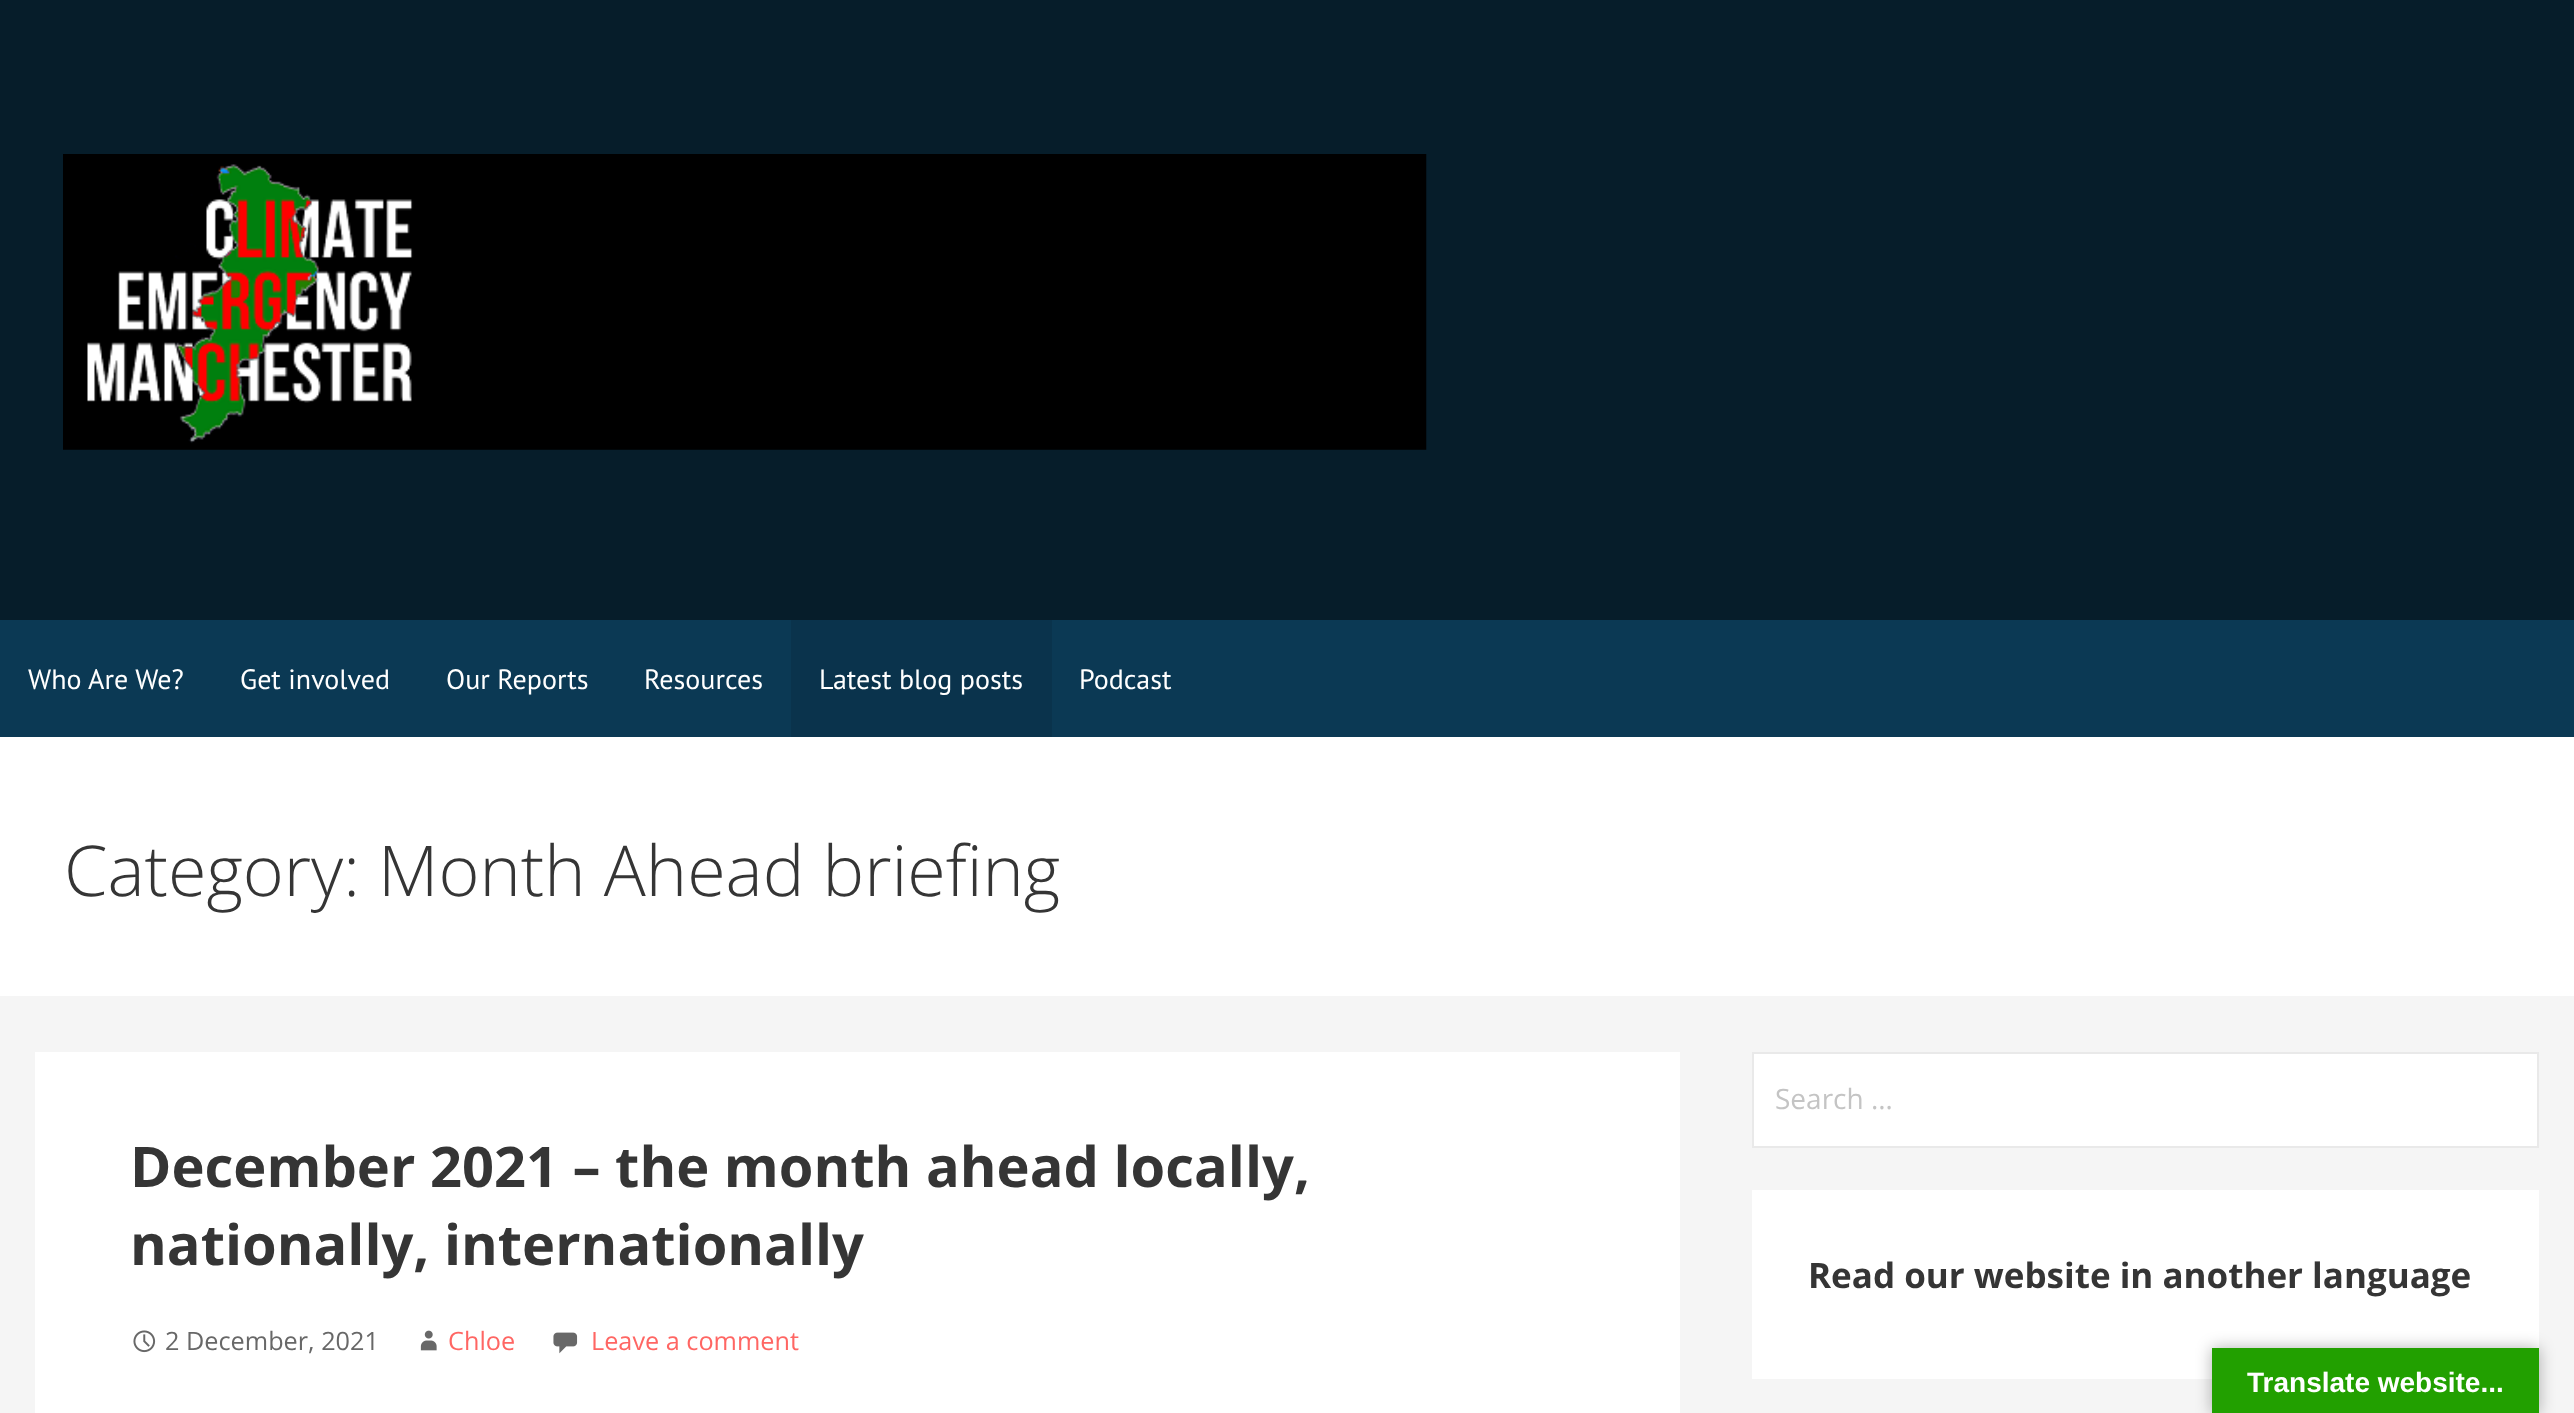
(async () => {
const canvas = document.querySelector("canvas")
canvas.width = 2574
canvas.height = 1413
const c = canvas.getContext("2d")
c.miterLimit = 4
c.fontKerning = "normal"
function T(s,x,y){c.fillText(s,x,y)}
function R(x,y,w,h){c.fillRect(x,y,w,h)}
async function I(src,x,y,w,h){const img=new Image();img.src=src;await img.decode();c.drawImage(img,x,y,w,h)}
c.fillStyle="#f5f5f5"
R(0,0,2574,1413)
c.fillStyle="#061d2a"
R(0,0,2574,620)
await I("1.png",63,154,1364,296)
c.fillStyle="#0b3954"
R(0,620,2574,117)
c.font="28px PT Sans"
c.fillStyle="#fff"
T("Who Are We?",28,689)
T("Get involved",240,689)
T("Our Reports",446,689)
T("Resources",644,689)
c.fillStyle="#0a334c"
R(791,620,261,117)
c.fillStyle="#fff"
T("Latest blog posts",819,689)
T("Podcast",1079,689)
R(0,737,2574,259)
c.font="300 70px Open Sans"
c.fillStyle="#353535"
T("Category: Month Ahead briefing",64,896)
c.fillStyle="#fff"
R(35,1052,1645,361)
c.font="bold 56px Open Sans"
c.fillStyle="#353535"
T("December 2021 – the month ahead locally,",130,1187)
T("nationally, internationally",130,1265)
await I("2.png",133,1330,23,23)
c.font="25.25px Open Sans"
c.fillStyle="#686868"
T("2 December, 2021",165,1350)
await I("3.png",420,1330,17,21)
c.fillStyle="#ff6663"
T("Chloe",448,1350)
await I("4.png",553,1332,25,22)
T("Leave a comment",591,1350)
c.fillStyle="#fff"
c.beginPath()
c.rect(1753,1053,785,94)
c.fill()
c.strokeStyle="#e9e9e9"
c.lineWidth=2
c.stroke()
c.font="28px Open Sans"
c.fillStyle="#c4c4c4"
T("Search …",1775,1109)
c.fillStyle="#fff"
R(1752,1190,787,189)
c.font="bold 35px Open Sans"
c.fillStyle="#353535"
T("Read our website in another language",1808,1288)
c.fillStyle="#0000004d"
c.filter="blur(8px)"
c.beginPath()
c.rect(2212,1348,327,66)
c.fill()
c.filter="none"
c.fillStyle="#22a000"
R(2212,1348,327,65)
c.font="bold 28px Liberation Sans"
c.fillStyle="#fff"
T("Translate website...",2247,1392)
})()
